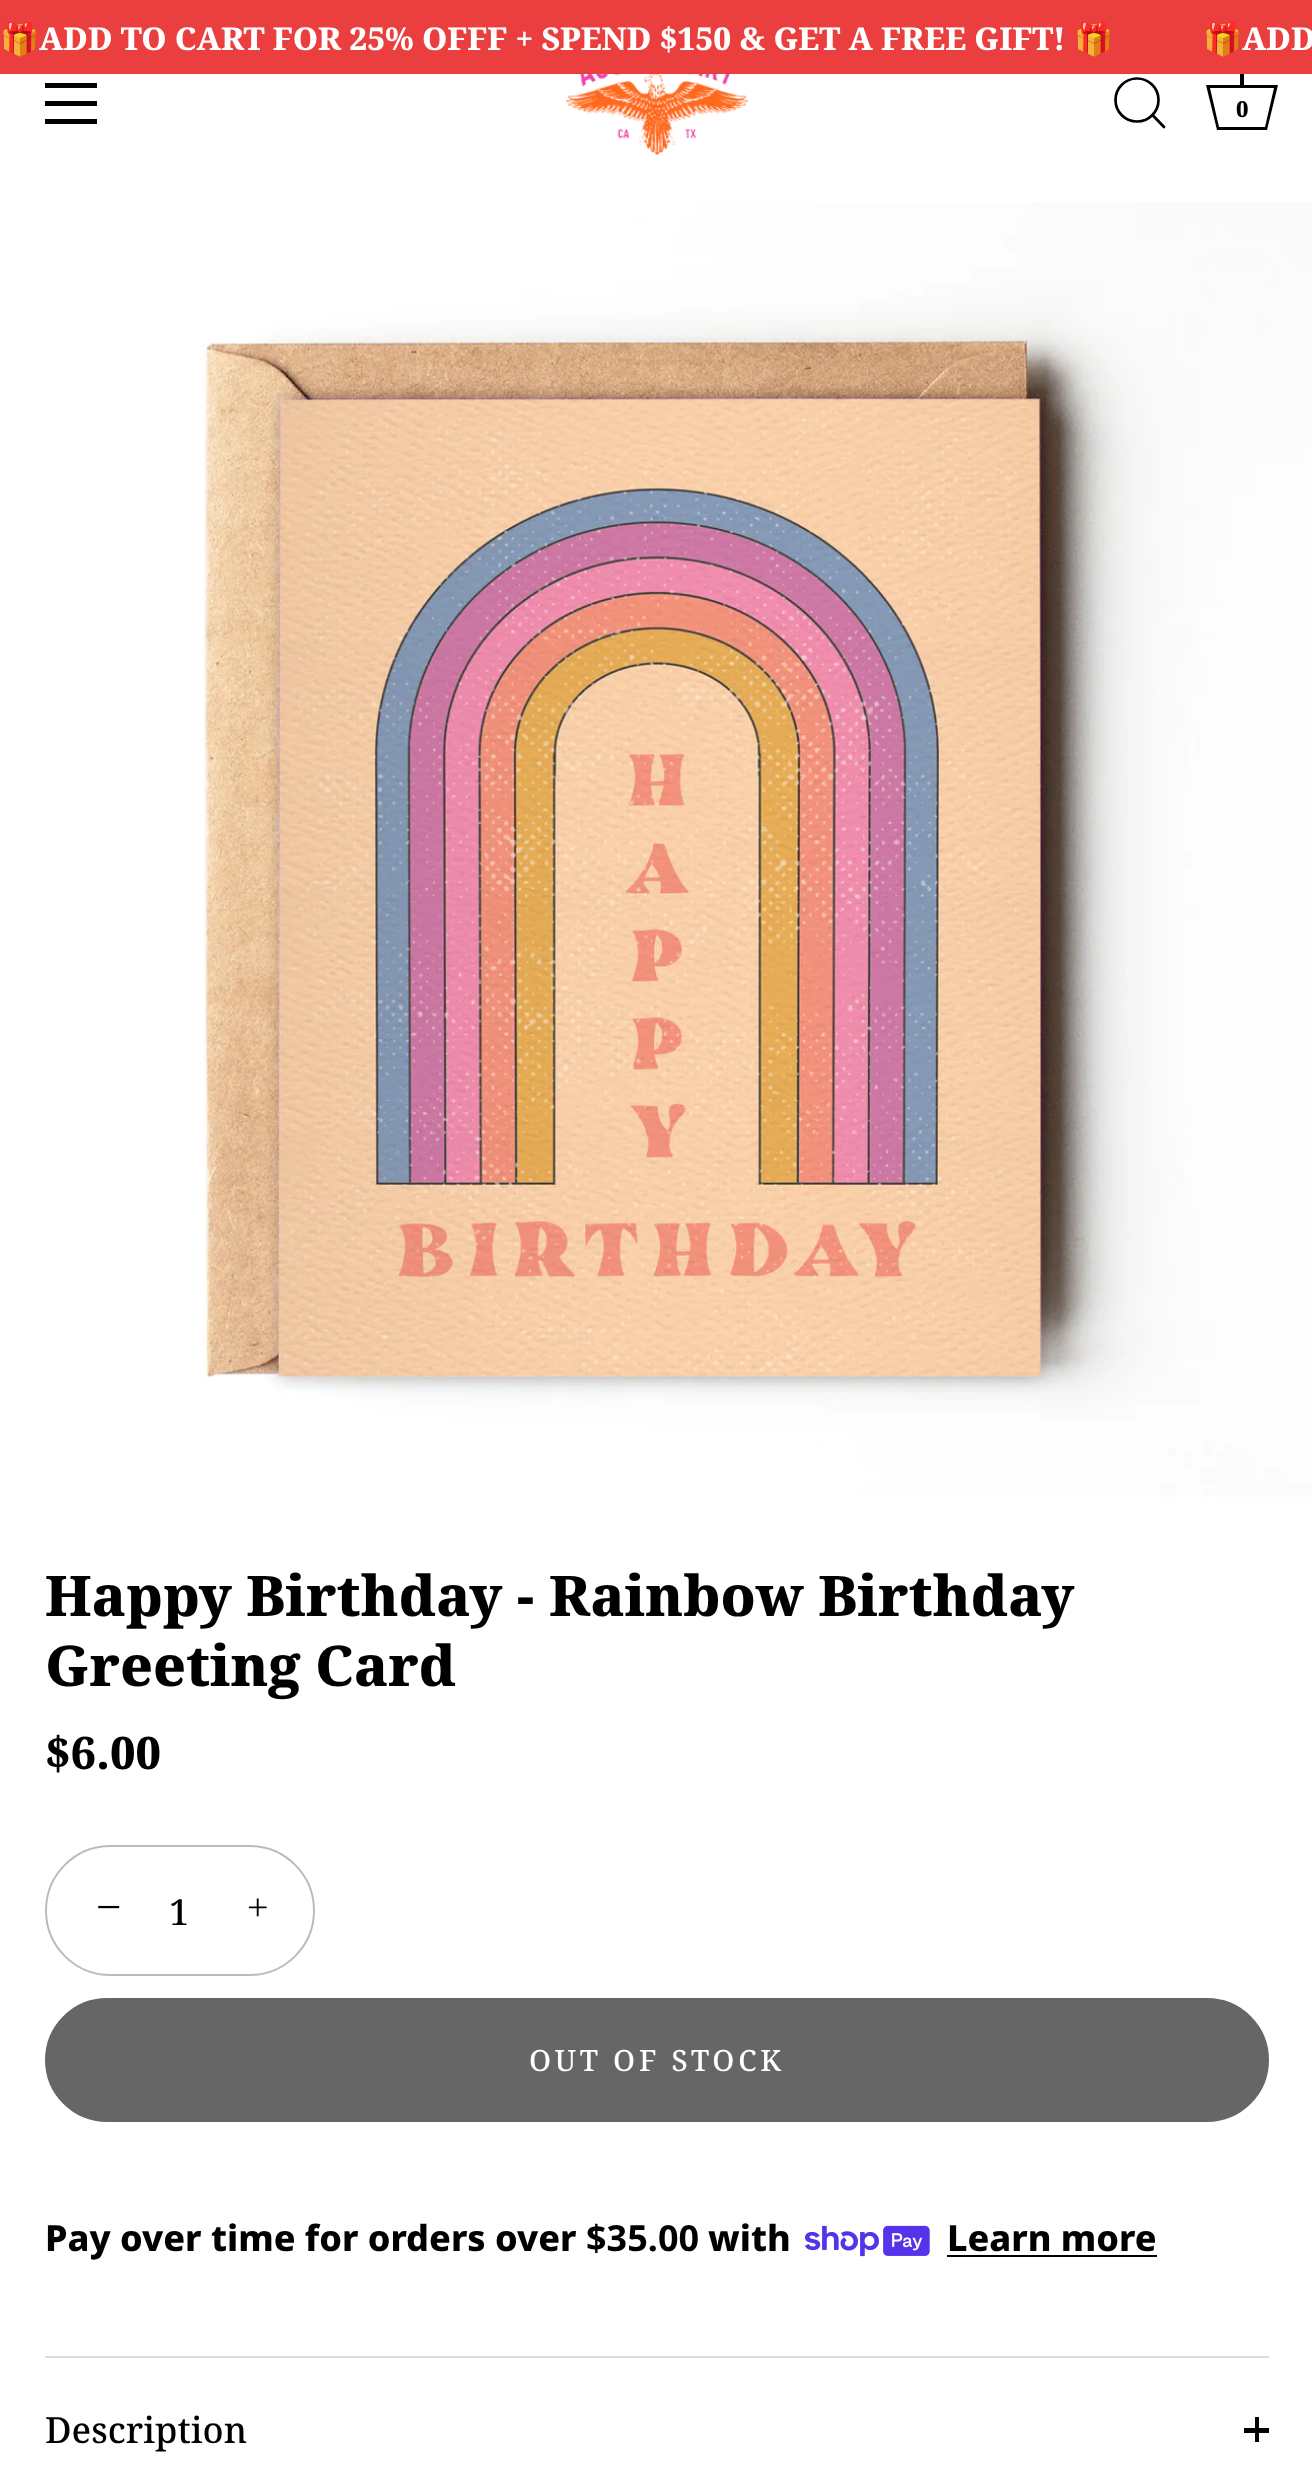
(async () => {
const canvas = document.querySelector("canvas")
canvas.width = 1312
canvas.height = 2468
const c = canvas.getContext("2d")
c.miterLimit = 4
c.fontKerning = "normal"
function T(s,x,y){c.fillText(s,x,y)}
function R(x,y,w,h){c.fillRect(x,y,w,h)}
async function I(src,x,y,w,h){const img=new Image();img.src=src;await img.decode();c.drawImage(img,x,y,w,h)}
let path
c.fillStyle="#fff"
R(0,0,1312,2468)
c.fillStyle="#eb3e3e"
R(0,0,1312,74)
c.font="bold 31.5px Noto Color Emoji"
c.fillStyle="#fff"
T("🎁",0,50)
c.font="800 31.5px Noto Serif"
T("ADD TO CART FOR 25% OFFF + SPEND $150 & GET A FREE GIFT!",39,50)
c.font="bold 31.5px Noto Color Emoji"
T("🎁",1074,50)
T("🎁",1203,50)
c.font="800 31.5px Noto Serif"
T("ADD",1242,50)
c.fillStyle="#000"
R(45,83,52,5)
R(45,101,52,5)
R(45,119,52,5)
await I("1.png",565,74,184,82)
c.beginPath()
c.arc(1137,100,21.5,0,7)
c.strokeStyle="#000"
c.lineWidth=2.7
c.stroke()
path = new Path2D("M1164 127l-11.5-12")
c.lineCap="round"
c.lineJoin="round"
c.stroke(path)
R(1240,74,4,11)
path = new Path2D("M1274 88l-9 39h-46l-9-39h64m4-3h-72l11 45h50z")
c.fill(path)
c.font="800 22px Noto Serif"
T("0",1236,117)
await I("2.png",203,203,1109,1294)
c.font="800 56.2px Noto Serif"
T("Happy Birthday - Rainbow Birthday",45,1616)
T("Greeting Card",45,1686)
c.font="800 45px Noto Serif"
T("$6.00",45,1769)
c.beginPath()
c.roundRect(46,1846,268,129,64.5)
c.strokeStyle="#bbb"
c.lineWidth=2
c.lineJoin="miter"
c.stroke()
c.font="45px Liberation Serif"
T("−",96,1922)
c.letterSpacing="2px"
c.font="500 36px Noto Serif"
T("1",169,1925)
c.letterSpacing="0px"
c.font="38px Liberation Serif"
T("+",247,1920)
c.fillStyle="#666"
c.beginPath()
c.roundRect(46,1999,1222,122,61)
c.fill()
c.strokeStyle="#666"
c.stroke()
c.letterSpacing="3.75px"
c.font="500 29.25px Noto Serif"
c.fillStyle="#fff"
T("OUT OF STOCK",529,2071)
c.letterSpacing="0px"
c.font="800 36px Noto Sans"
c.fillStyle="#000"
T("Pay over time for orders over",45,2251)
c.font="bold 36px Noto Sans"
T("$35.00",586,2251)
c.font="800 36px Noto Sans"
T("with",708,2251)
await I("3.png",805,2225,125,32)
T("Learn more",947,2251)
R(947,2255,210,2)
c.fillStyle="#ddd"
R(45,2356,1224,2)
c.font="500 36px Noto Serif"
c.fillStyle="#000"
T("Description",45,2443)
R(1255,2417,4,25)
R(1244,2428,25,5)
})()
